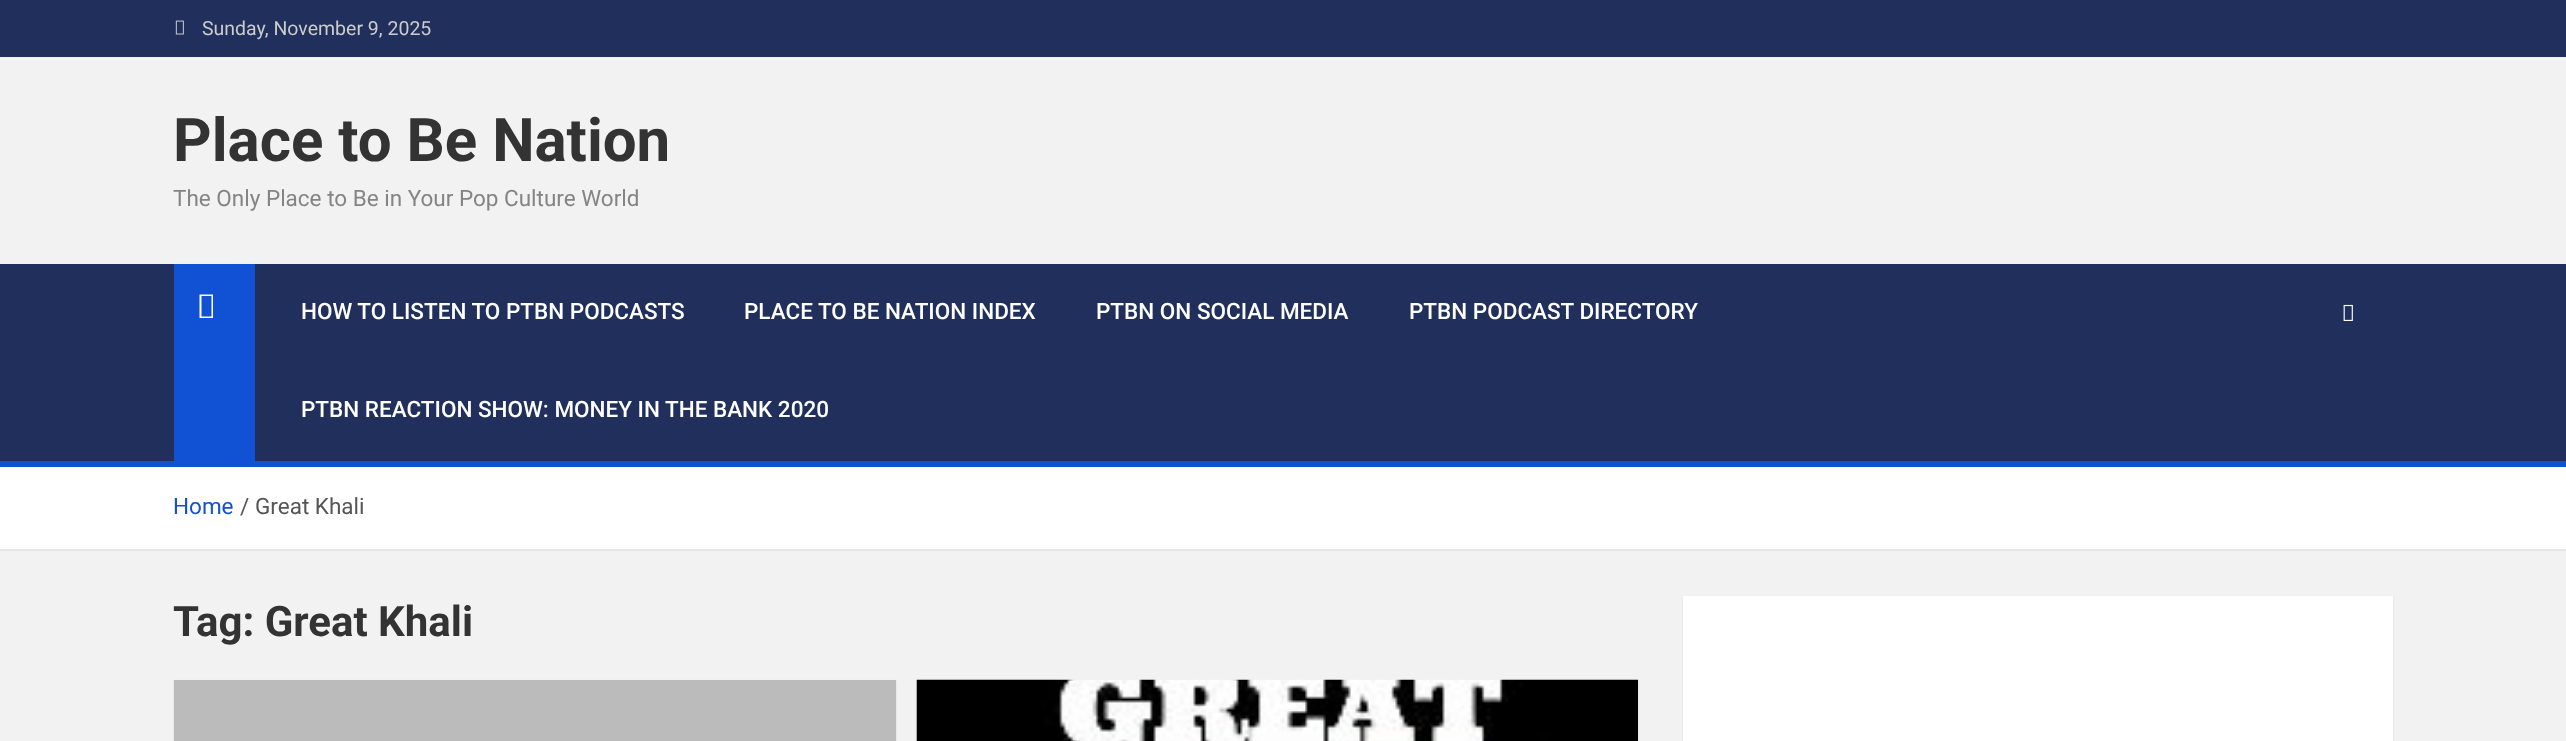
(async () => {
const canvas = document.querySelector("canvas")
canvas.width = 2566
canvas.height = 741
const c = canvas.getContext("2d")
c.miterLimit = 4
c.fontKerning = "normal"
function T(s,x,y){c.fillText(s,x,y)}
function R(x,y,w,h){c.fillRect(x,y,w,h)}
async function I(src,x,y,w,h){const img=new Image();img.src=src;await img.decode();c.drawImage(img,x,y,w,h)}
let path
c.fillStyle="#f2f2f2"
R(0,0,2566,741)
c.fillStyle="#202f5b"
R(0,0,2566,57)
await I("1.png",175,20,9,15)
c.font="19.5px Roboto"
c.fillStyle="#ccc"
T("Sunday, November 9, 2025",202,35)
c.font="bold 60px Roboto"
c.fillStyle="#333"
T("Place to Be Nation",173,161)
c.font="22.5px Roboto"
c.fillStyle="#848484"
T("The Only Place to Be in Your Pop Culture World",173,206)
c.fillStyle="#202f5b"
R(0,264,2566,197)
c.fillStyle="#1151d3"
R(0,461,2566,6)
R(174,264,81,197)
c.fillStyle="#fff"
path = new Path2D("M199.5 318v-23.5h13.5v23.5zm2-1.5h10v-20.5h-10z")
c.fill(path)
c.font="500 22.5px Roboto"
T("HOW TO LISTEN TO PTBN PODCASTS",301,319)
T("PLACE TO BE NATION INDEX",744,319)
T("PTBN ON SOCIAL MEDIA",1096,319)
T("PTBN PODCAST DIRECTORY",1409,319)
T("PTBN REACTION SHOW: MONEY IN THE BANK 2020",301,417)
await I("2.png",2343,304,10,17)
R(0,467,2566,82)
c.fillStyle="#e6e6e6"
R(0,549,2566,2)
c.font="22.5px Roboto"
c.fillStyle="#1151d3"
T("Home",173,514)
c.fillStyle="#555"
T("/",240,514)
T("Great Khali",255,514)
c.font="bold 42px Roboto"
c.fillStyle="#333"
T("Tag: Great Khali",173,636)
c.fillStyle="#0000001a"
c.filter="blur(1px)"
c.beginPath()
c.rect(174,681,722,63)
c.fill()
c.filter="none"
c.fillStyle="#bbb"
R(174,680,722,61)
c.fillStyle="#0000001a"
c.filter="blur(1px)"
c.beginPath()
c.rect(917,681,721,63)
c.fill()
c.filter="none"
await I("3.png",916,679,722,62)
c.filter="blur(1px)"
c.beginPath()
c.rect(1683,597,710,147)
c.fill()
c.filter="none"
c.fillStyle="#fff"
R(1683,596,710,145)
})()
